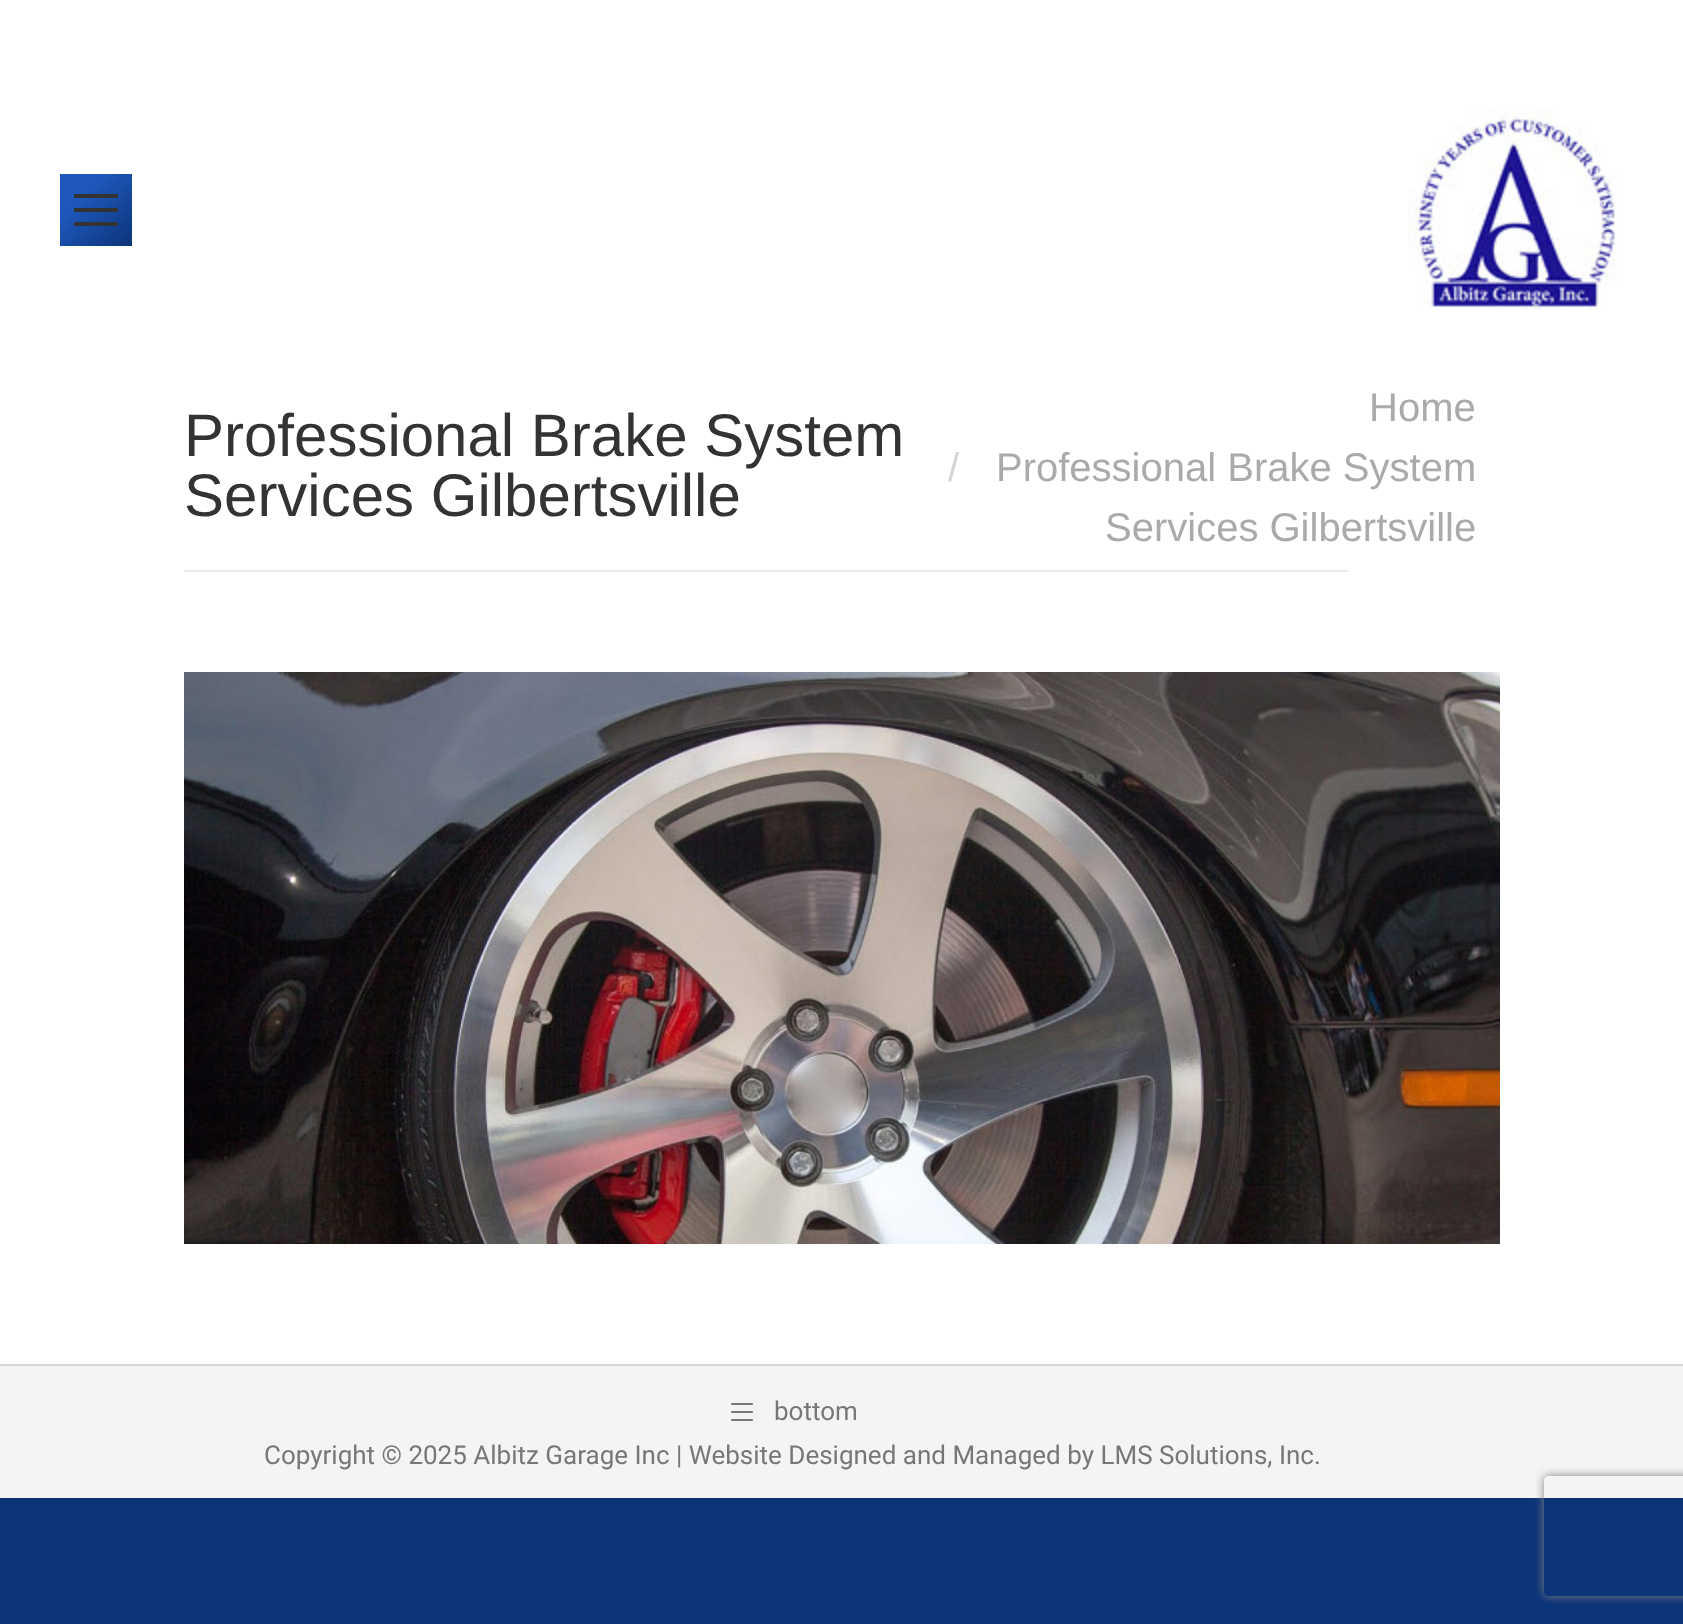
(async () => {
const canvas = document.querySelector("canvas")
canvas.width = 1683
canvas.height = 1624
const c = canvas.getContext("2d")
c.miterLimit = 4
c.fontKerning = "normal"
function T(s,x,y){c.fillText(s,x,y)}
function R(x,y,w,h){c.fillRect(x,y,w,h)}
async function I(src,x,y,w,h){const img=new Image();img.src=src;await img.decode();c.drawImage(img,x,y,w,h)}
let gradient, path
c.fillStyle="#0c3479"
R(0,0,1683,1624)
c.fillStyle="#fff"
R(0,0,1683,1364)
gradient = c.createLinearGradient(60,174,132,246)
gradient.addColorStop(.3,"#1e58bc")
gradient.addColorStop(1,"#0c3479")
c.fillStyle = gradient
R(60,174,72,72)
c.fillStyle="#333"
R(74,194,44,4)
R(74,208,44,4)
R(74,222,44,4)
await I("1.png",1408,110,209,200)
c.font="60px Liberation Sans"
T("Professional Brake System",184,456)
T("Services Gilbertsville",184,516)
c.font="40px Liberation Sans"
c.fillStyle="#aaa"
T("Home",1369,421)
c.fillStyle="#d5d5d5"
T("/",948,481)
c.fillStyle="#aaa"
T("Professional Brake System",996,481)
T("Services Gilbertsville",1105,541)
c.fillStyle="#e9e9e9"
R(184,570,1164,2)
await I("2.png",184,672,1316,572)
c.fillStyle="#f4f4f4"
R(0,1366,1683,132)
c.fillStyle="#d6d6d6"
R(0,1364,1683,2)
await I("3.png",731,1403,22,18)
c.font="26px Roboto"
c.fillStyle="#777"
T("bottom",774,1420)
T("Copyright © 2025 Albitz Garage Inc | Website Designed and Managed by LMS Solutions, Inc.",264,1464)
c.save()
path = new Path2D("M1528 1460h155v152h-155zm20 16h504c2 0 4 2 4 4v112c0 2-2 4-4 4h-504c-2 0-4-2-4-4v-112c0-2 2-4 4-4z")
c.clip(path,"evenodd")
c.fillStyle="#808080"
c.filter="blur(5px)"
c.beginPath()
c.roundRect(1544,1476,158,120,4)
c.fill()
c.filter="none"
c.restore()
})()
